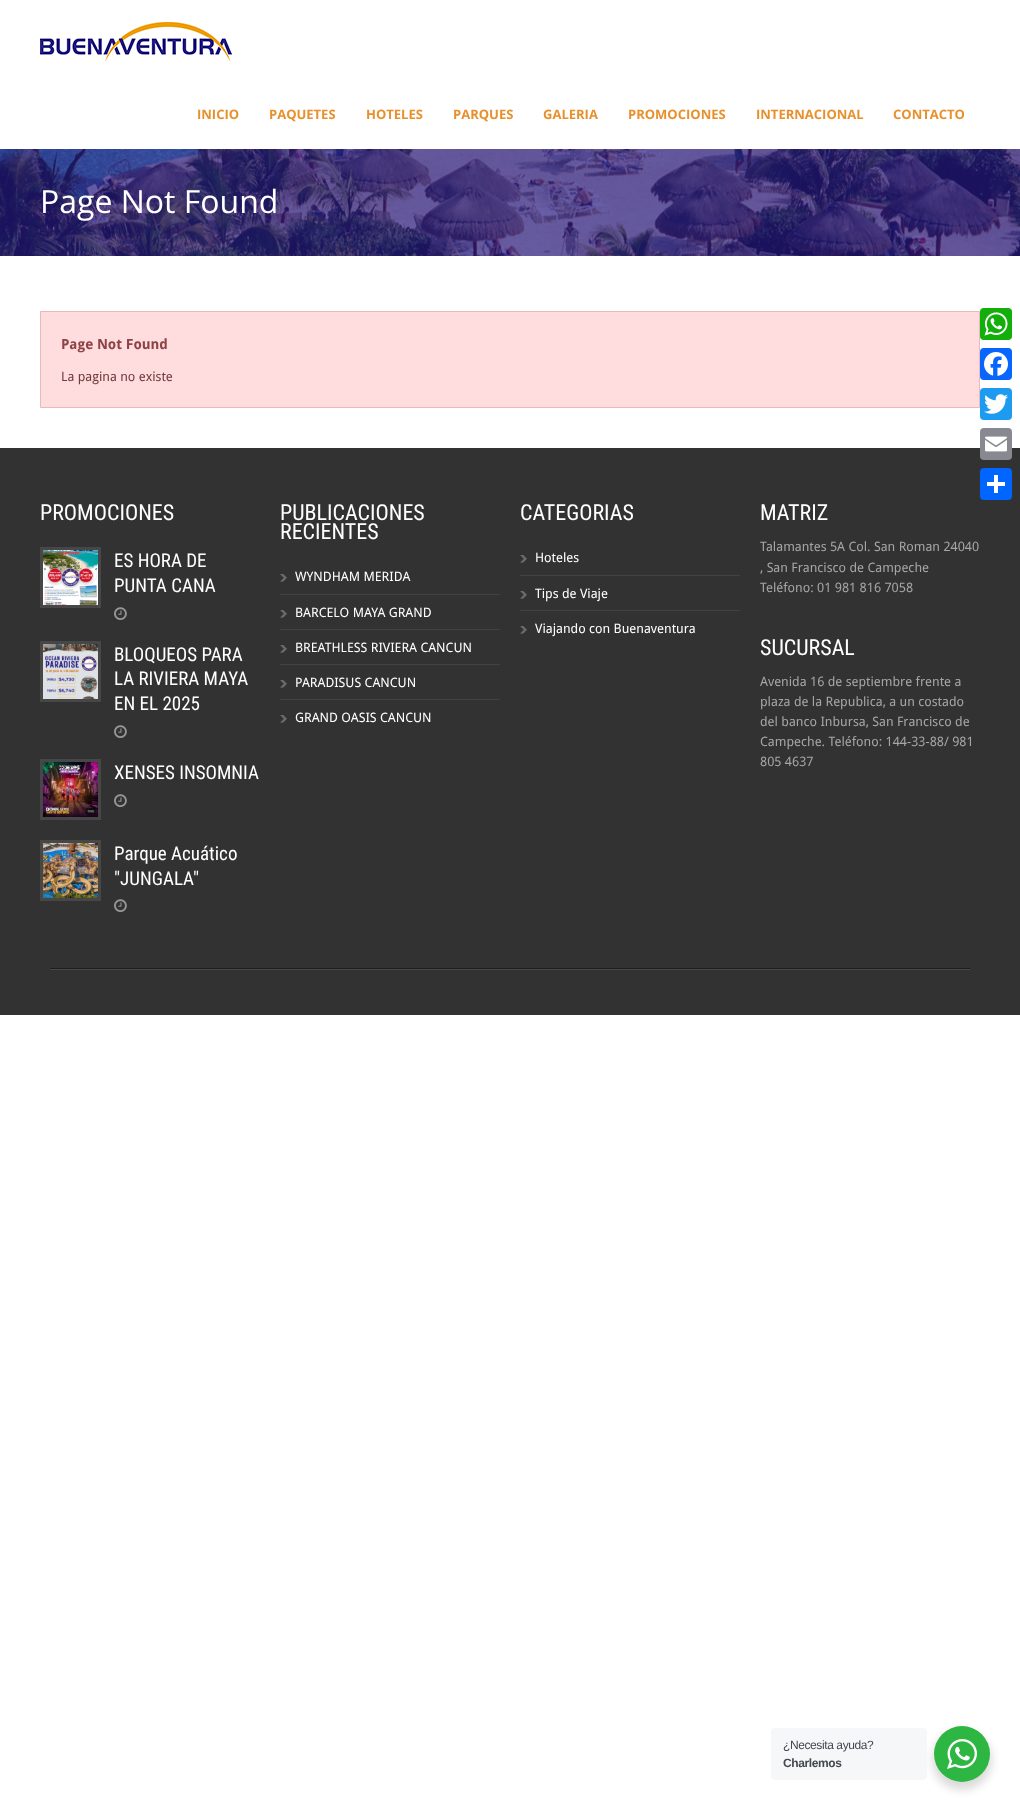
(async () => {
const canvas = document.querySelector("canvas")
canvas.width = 1020
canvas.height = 1812
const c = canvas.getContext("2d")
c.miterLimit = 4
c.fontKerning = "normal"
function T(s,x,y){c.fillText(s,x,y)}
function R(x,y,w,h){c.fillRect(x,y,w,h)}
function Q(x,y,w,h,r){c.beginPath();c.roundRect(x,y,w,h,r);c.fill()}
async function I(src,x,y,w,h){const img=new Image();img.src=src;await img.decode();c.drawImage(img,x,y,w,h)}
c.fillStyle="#fff"
R(0,0,1020,1812)
await I("1.png",0,149,1020,107)
await I("2.png",40,22,192,40)
c.font="bold 13px Open Sans"
c.fillStyle="#e8902c"
T("INICIO",197,119)
T("PAQUETES",269,119)
T("HOTELES",366,119)
T("PARQUES",453,119)
T("GALERIA",543,119)
T("PROMOCIONES",628,119)
T("INTERNACIONAL",756,119)
T("CONTACTO",893,119)
c.fillStyle="#261985b3"
R(0,149,1020,107)
c.font="32px Open Sans"
c.fillStyle="#fff"
T("Page Not Found",40,213)
c.fillStyle="#ffdcdd"
c.beginPath()
c.rect(40.5,311.5,939,96)
c.fill()
c.strokeStyle="#e9b9bb"
c.stroke()
c.font="bold 14px Droid Sans"
c.fillStyle="#8d4345"
T("Page Not Found",61,349)
c.font="13px Droid Sans"
c.fillStyle="#713a3c"
T("La pagina no existe",61,381)
c.fillStyle="#323232"
R(0,448,1020,567)
c.font="22px Roboto Condensed"
c.fillStyle="#fff"
T("PROMOCIONES",40,520)
c.fillStyle="#474747"
R(40,547,61,61)
await I("3.png",43,550,55,55)
c.font="19px Roboto Condensed"
c.fillStyle="#fff"
T("ES HORA DE",114,567)
T("PUNTA CANA",114,592)
await I("4.png",114,607,13,13)
c.fillStyle="#474747"
R(40,641,61,61)
await I("5.png",43,644,55,55)
c.fillStyle="#fff"
T("BLOQUEOS PARA",114,661)
T("LA RIVIERA MAYA",114,685)
T("EN EL 2025",114,710)
await I("4.png",114,725,13,13)
c.fillStyle="#474747"
R(40,759,61,61)
await I("6.png",43,762,55,55)
c.fillStyle="#fff"
T("XENSES INSOMNIA",114,779)
await I("4.png",114,794,13,13)
c.fillStyle="#474747"
R(40,840,61,61)
await I("7.png",43,843,55,55)
c.fillStyle="#fff"
T("Parque Acuático",114,860)
T("\"JUNGALA\"",114,885)
await I("4.png",114,899,13,13)
c.font="22px Roboto Condensed"
T("PUBLICACIONES",280,520)
T("RECIENTES",280,539)
await I("8.png",280,574,7,8)
c.fillStyle="#424242"
R(280,594,220,1)
c.font="13px Droid Sans"
c.fillStyle="#fff"
T("WYNDHAM MERIDA",295,581)
await I("8.png",280,610,7,8)
c.fillStyle="#424242"
R(280,629,220,1)
c.fillStyle="#fff"
T("BARCELO MAYA GRAND",295,617)
await I("8.png",280,645,7,8)
c.fillStyle="#424242"
R(280,664,220,1)
c.fillStyle="#fff"
T("BREATHLESS RIVIERA CANCUN",295,652)
await I("8.png",280,680,7,8)
c.fillStyle="#424242"
R(280,699,220,1)
c.fillStyle="#fff"
T("PARADISUS CANCUN",295,687)
await I("8.png",280,715,7,8)
T("GRAND OASIS CANCUN",295,722)
c.font="22px Roboto Condensed"
T("CATEGORIAS",520,520)
await I("8.png",520,555,7,8)
c.fillStyle="#424242"
R(520,575,220,1)
c.font="13px Droid Sans"
c.fillStyle="#fff"
T("Hoteles",535,562)
await I("8.png",520,591,7,8)
c.fillStyle="#424242"
R(520,610,220,1)
c.fillStyle="#fff"
T("Tips de Viaje",535,598)
await I("8.png",520,626,7,8)
T("Viajando con Buenaventura",535,633)
c.font="22px Roboto Condensed"
T("MATRIZ",760,520)
c.font="13px Droid Sans"
c.fillStyle="#a5a5a5"
T("Talamantes 5A Col. San Roman 24040",760,551)
T(", San Francisco de Campeche",760,572)
T("Teléfono: 01 981 816 7058",760,592)
c.font="22px Roboto Condensed"
c.fillStyle="#fff"
T("SUCURSAL",760,655)
c.font="13px Droid Sans"
c.fillStyle="#a5a5a5"
T("Avenida 16 de septiembre frente a",760,686)
T("plaza de la Republica, a un costado",760,706)
T("del banco Inbursa, San Francisco de",760,726)
T("Campeche. Teléfono: 144-33-88/ 981",760,746)
T("805 4637",760,766)
c.fillStyle="#1e1e1e"
R(50,968,920,1)
c.fillStyle="#494949"
R(50,969,920,1)
c.fillStyle="#12af0a"
Q(980,308,32,32,4)
await I("9.png",984,312,24,24)
c.fillStyle="#0866ff"
Q(980,348,32,32,4)
await I("10.png",984,352,24,24)
c.fillStyle="#1d9bf0"
Q(980,388,32,32,4)
await I("11.png",984,394,24,20)
c.fillStyle="#888990"
Q(980,428,32,32,4)
await I("12.png",985,436,22,16)
c.fillStyle="#0166ff"
Q(980,468,32,32,4)
c.fillStyle="#fff"
R(994,475,4,18)
R(987,482,18,4)
c.fillStyle="#00000024"
c.filter="blur(4px)"
c.beginPath()
c.roundRect(932,1730,60,60,30)
c.fill()
c.filter="none"
c.fillStyle="#f5f7f9"
Q(771,1728,156,52,4)
c.letterSpacing="-0.4px"
c.font="12px Liberation Sans"
c.fillStyle="#43474e"
T("¿Necesita ayuda?",783,1749)
c.font="bold 12px Liberation Sans"
T("Charlemos",783,1767)
c.fillStyle="#2db742"
c.beginPath()
c.arc(962,1754,28,0,7)
c.fill()
await I("13.png",947,1739,30,30)
})()
